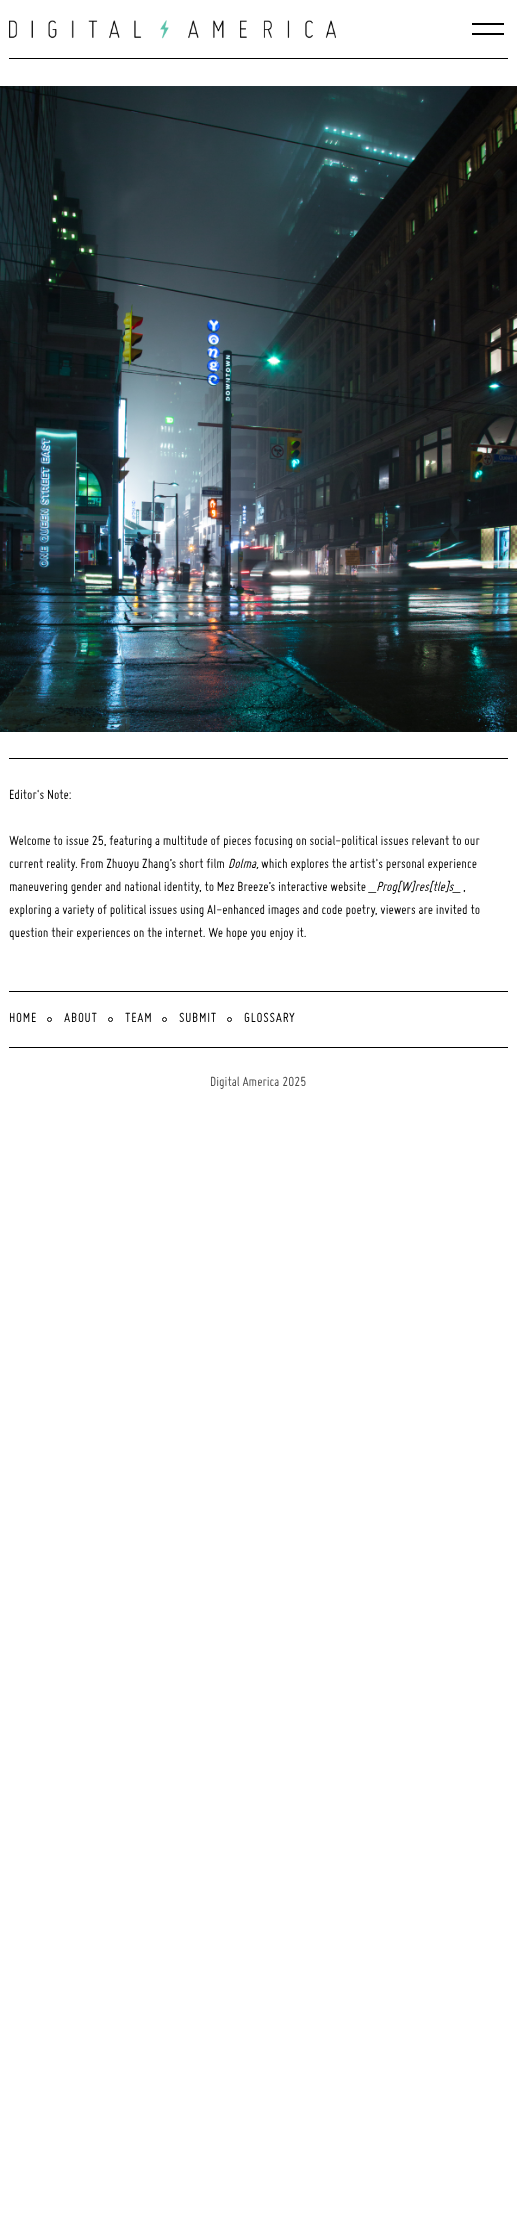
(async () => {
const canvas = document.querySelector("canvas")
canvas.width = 517
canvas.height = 2222
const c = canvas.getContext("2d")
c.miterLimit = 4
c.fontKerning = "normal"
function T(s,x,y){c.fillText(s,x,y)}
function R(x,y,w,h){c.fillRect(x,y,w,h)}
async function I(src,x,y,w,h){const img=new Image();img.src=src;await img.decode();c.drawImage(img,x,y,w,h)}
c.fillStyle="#fff"
R(0,0,517,2222)
await I("1.png",9,20,327,19)
c.fillStyle="#000"
R(472,23,32,2)
R(472,33,32,2)
R(9,58,499,1)
await I("2.png",0,86,517,646)
R(9,758,499,1)
c.font="14.4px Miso"
T("Editor's Note:",9,799)
T("Welcome to issue 25, featuring a multitude of pieces focusing on social-political issues relevant to our",9,845)
T("current reality. From Zhuoyu Zhang’s short film",9,868)
c.font="italic 14.4px Miso"
T("Dolma,",228,868)
c.font="14.4px Miso"
T("which explores the artist's personal experience",261,868)
T("maneuvering gender and national identity, to Mez Breeze’s interactive website",9,891)
c.font="italic 14.4px Miso"
T("_Prog[W]res[tle]s_",369,891)
c.font="14.4px Miso"
T(",",463,891)
T("exploring a variety of political issues using AI-enhanced images and code poetry, viewers are invited to",9,914)
T("question their experiences on the internet. We hope you enjoy it.",9,937)
R(9,991,499,1)
c.letterSpacing="0.75px"
T("HOME",9,1022)
c.beginPath()
c.arc(49.5,1019.5,2,0,7)
c.strokeStyle="#000"
c.stroke()
T("ABOUT",64,1022)
c.beginPath()
c.arc(110.5,1019.5,2,0,7)
c.stroke()
T("TEAM",125,1022)
c.beginPath()
c.arc(164.5,1019.5,2,0,7)
c.stroke()
T("SUBMIT",179,1022)
c.beginPath()
c.arc(229.5,1019.5,2,0,7)
c.stroke()
T("GLOSSARY",244,1022)
R(9,1047,499,1)
c.letterSpacing="0px"
c.fillStyle="#4d4d4d"
T("Digital America 2025",210,1086)
})()
